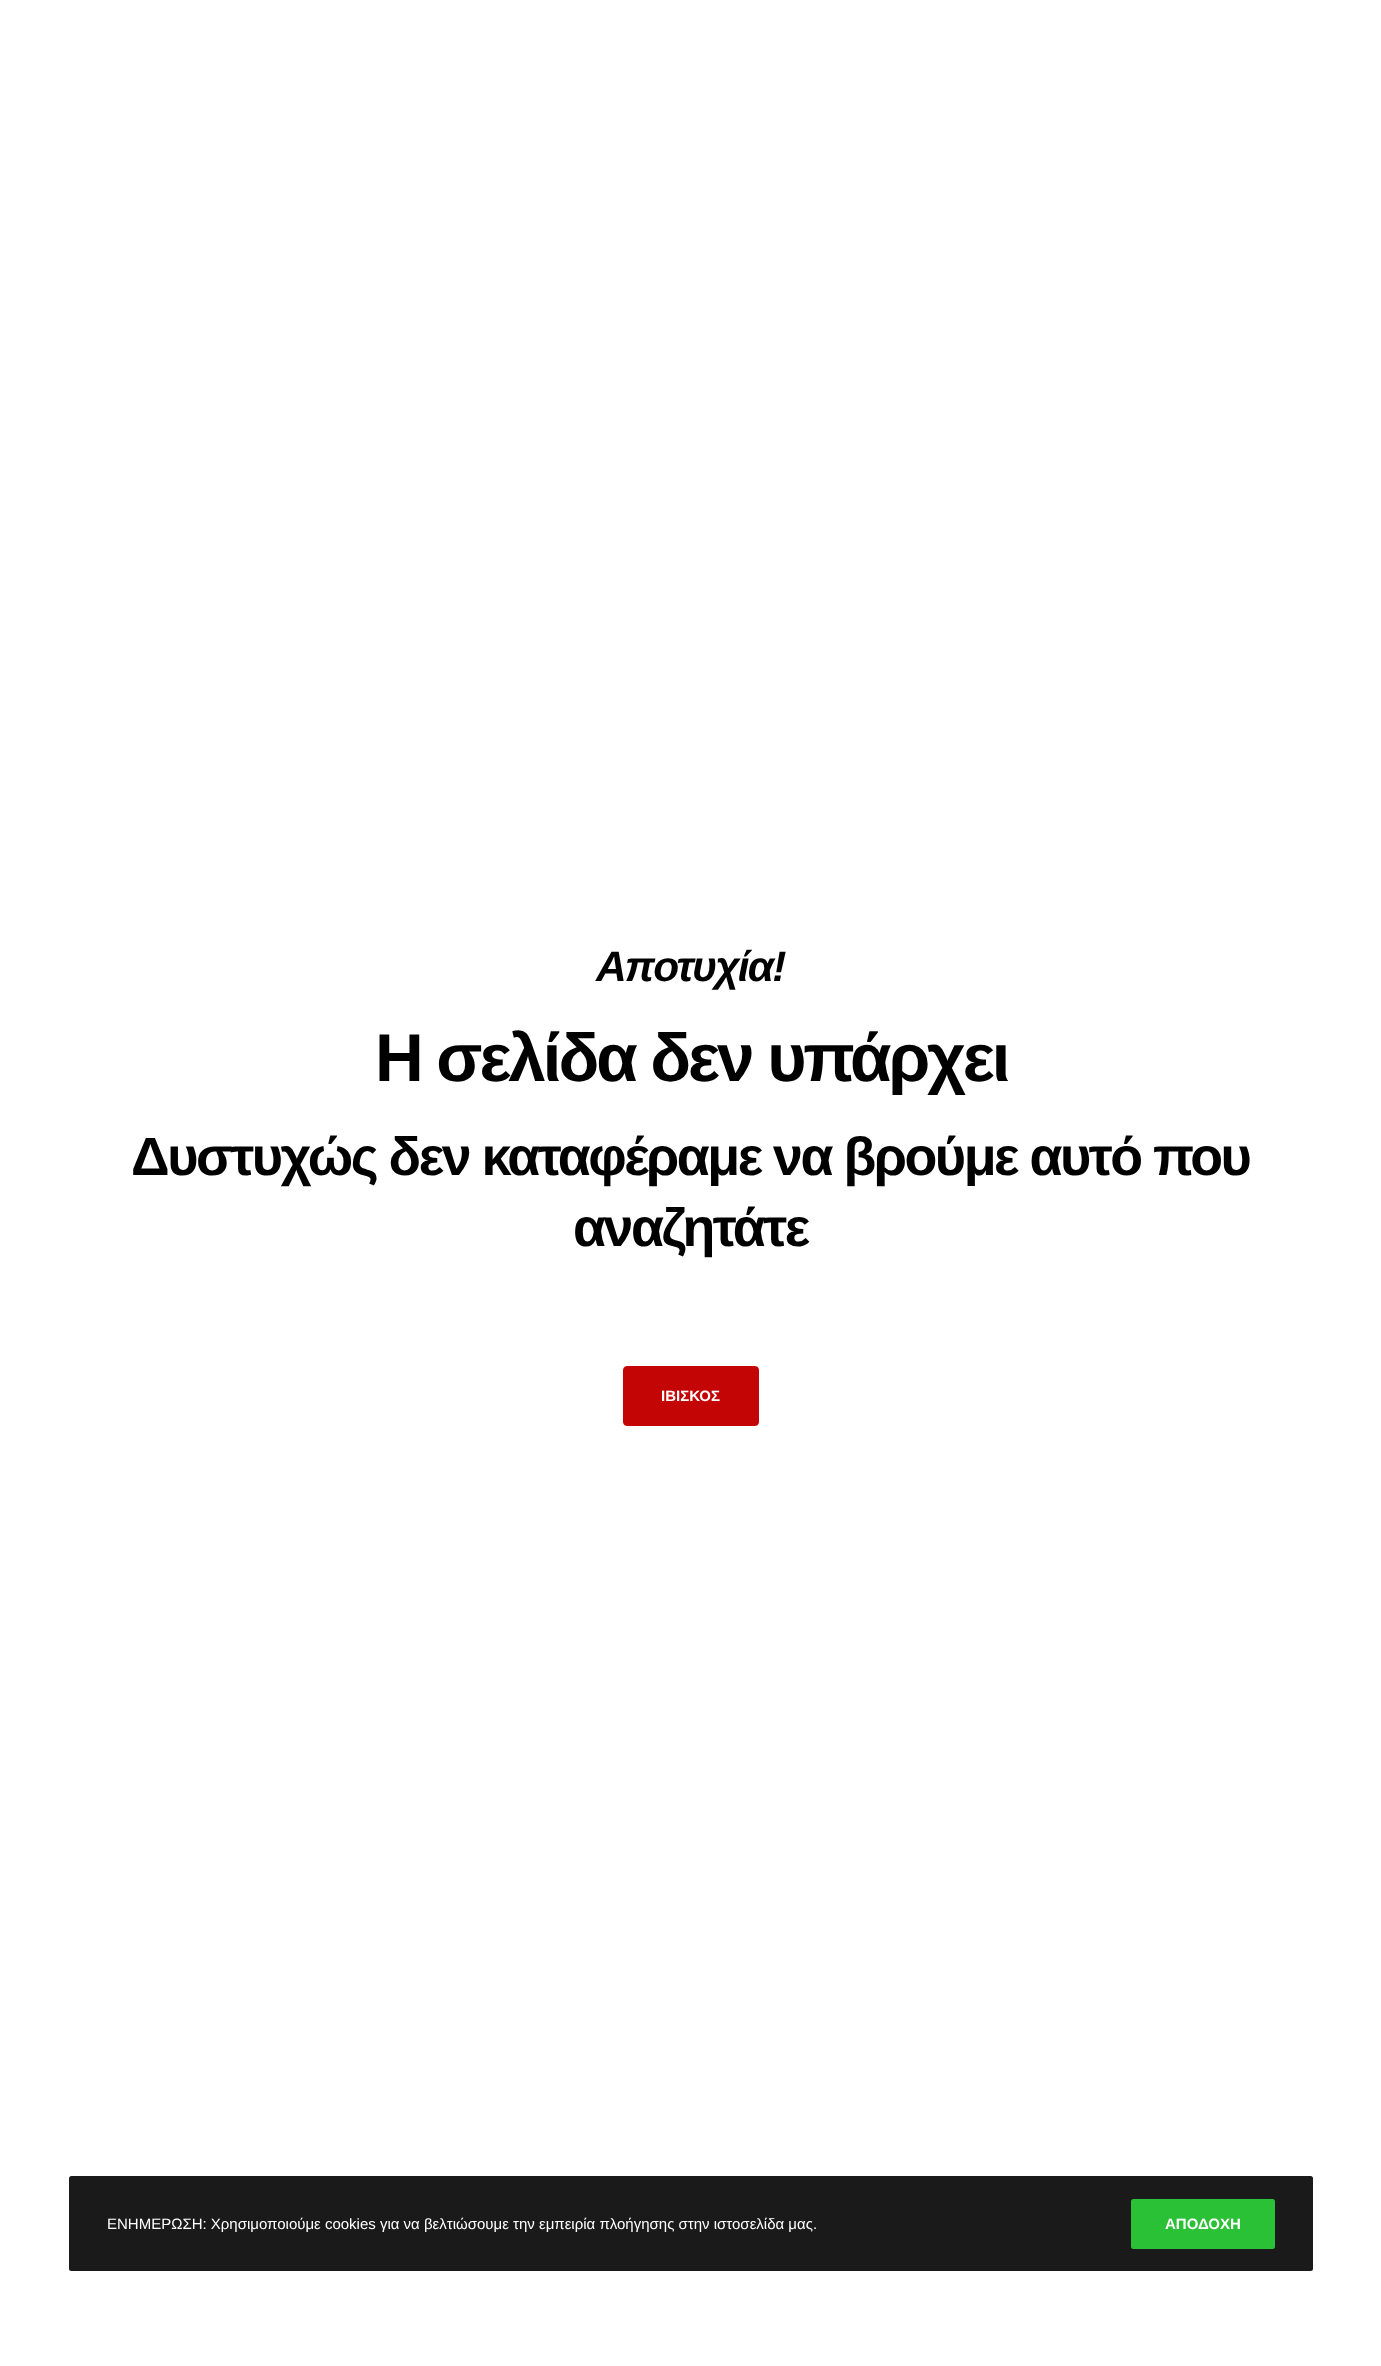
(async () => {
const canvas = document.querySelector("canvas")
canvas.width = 1381
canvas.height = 2366
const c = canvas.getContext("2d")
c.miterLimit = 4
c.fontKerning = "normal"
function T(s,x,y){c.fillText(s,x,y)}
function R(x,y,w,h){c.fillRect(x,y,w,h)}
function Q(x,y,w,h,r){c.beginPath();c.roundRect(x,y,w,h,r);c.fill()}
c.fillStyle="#fff"
R(0,0,1381,2366)
c.letterSpacing="-1.9px"
c.font="italic bold 42.5px Liberation Sans"
c.fillStyle="#000"
T("Αποτυχία!",596,981)
c.letterSpacing="-3.1px"
c.font="bold 67.5px Liberation Sans"
T("Η σελίδα δεν υπάρχει",375,1081)
c.letterSpacing="-2.5px"
c.font="bold 53.75px Liberation Sans"
T("Δυστυχώς δεν καταφέραμε να βρούμε αυτό που",131,1175)
T("αναζητάτε",573,1246)
c.fillStyle="#c40505"
c.beginPath()
c.roundRect(623.5,1366.5,135,59,3.5)
c.fill()
c.strokeStyle="#c40505"
c.stroke()
c.letterSpacing="0px"
c.font="bold 15px Liberation Sans"
c.fillStyle="#fff"
T("ΙΒΙΣΚΟΣ",661,1401)
c.fillStyle="#1a1a1a"
Q(69,2176,1244,95,2.5)
c.font="15px Liberation Sans"
c.fillStyle="#fff"
T("ΕΝΗΜΕΡΩΣΗ: Χρησιμοποιούμε cookies για να βελτιώσουμε την εμπειρία πλοήγησης στην ιστοσελίδα μας.",107,2229)
c.fillStyle="#2bc137"
Q(1131,2199,144,50,2.5)
c.font="bold 15px Liberation Sans"
c.fillStyle="#fff"
T("ΑΠΟΔΟΧΗ",1165,2229)
})()
